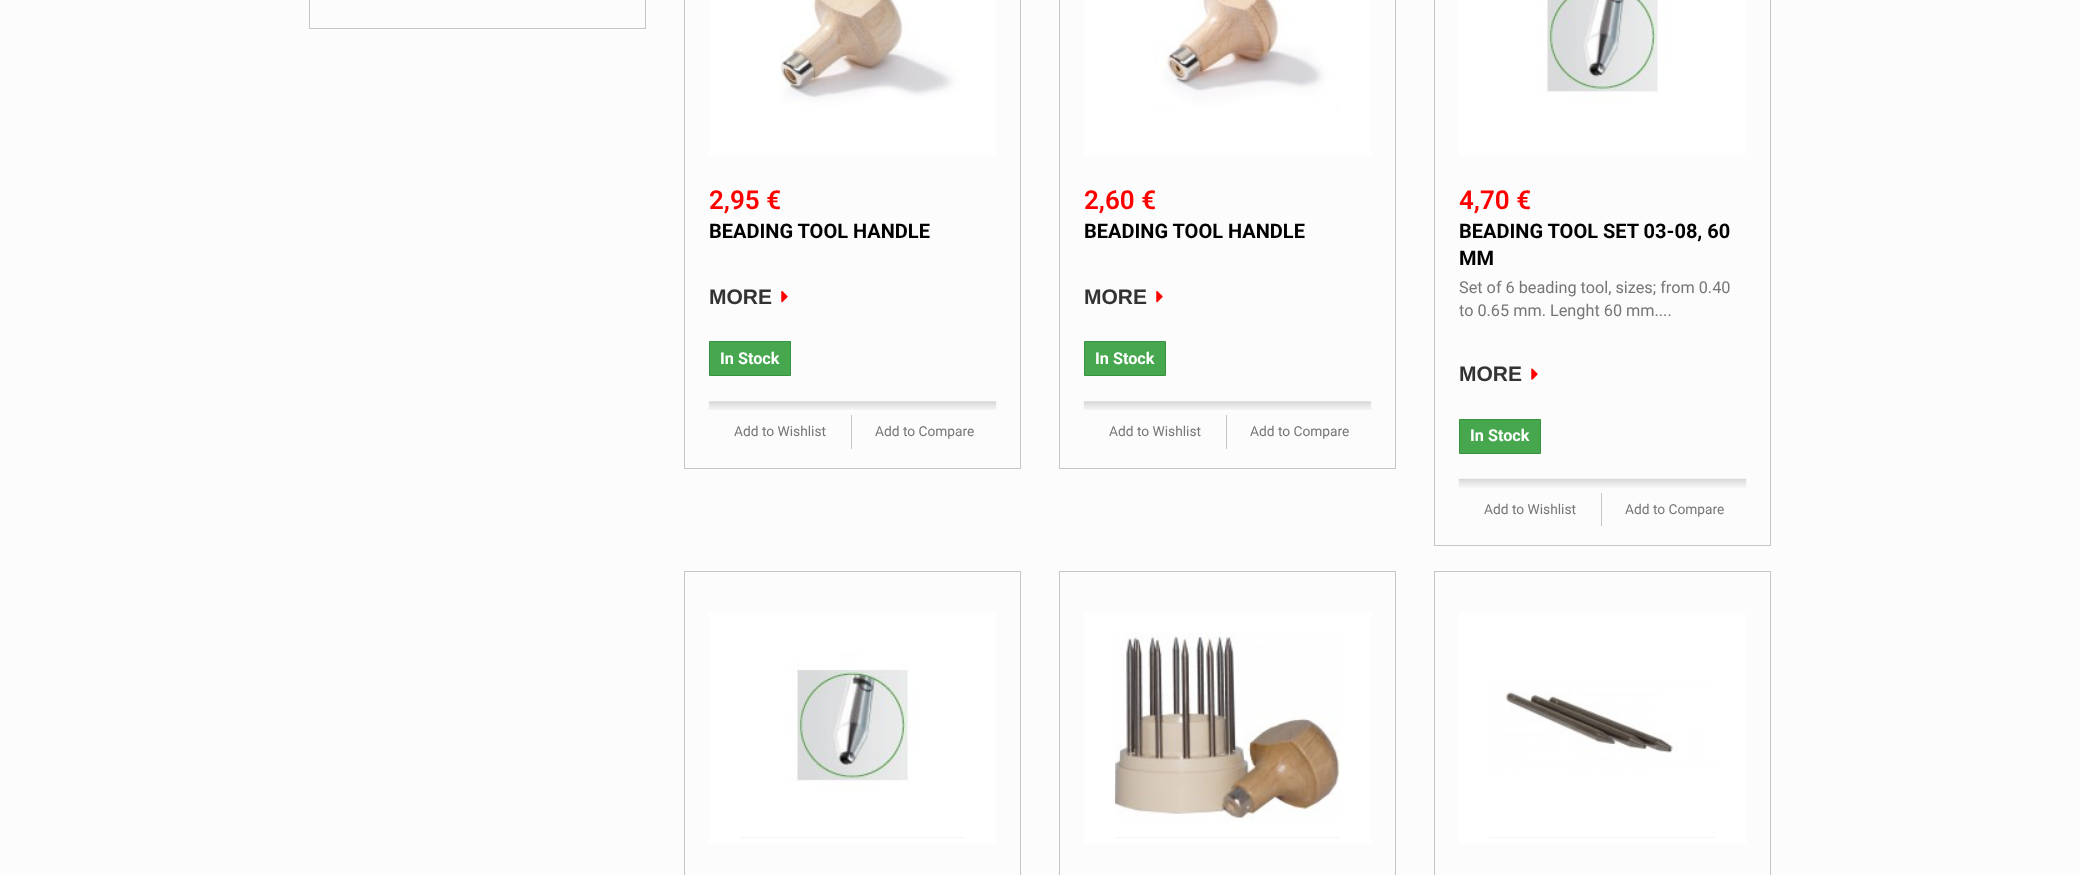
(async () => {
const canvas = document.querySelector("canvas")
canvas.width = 2080
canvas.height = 875
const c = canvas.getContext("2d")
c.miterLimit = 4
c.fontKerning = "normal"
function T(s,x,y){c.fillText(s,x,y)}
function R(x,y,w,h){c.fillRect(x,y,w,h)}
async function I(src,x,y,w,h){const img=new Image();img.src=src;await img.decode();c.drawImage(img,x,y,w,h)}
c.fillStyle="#fcfcfc"
R(0,0,2080,875)
c.strokeStyle="#c6c6c6"
c.strokeRect(309.5,-.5,336,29)
c.strokeRect(684.5,-.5,336,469)
c.fillStyle="#fff"
R(709,0,287,155)
await I("1.png",740,0,225,149)
c.font="600 26px Roboto"
c.fillStyle="#f00"
T("2,95 €",709,209)
c.font="bold 20px Roboto"
c.fillStyle="#000"
T("BEADING TOOL HANDLE",709,238)
c.font="bold 21px Liberation Sans"
c.fillStyle="#333"
T("MORE",709,304)
await I("2.png",781,291,7,12)
c.fillStyle="#46a74e"
c.beginPath()
c.rect(709.5,341.5,81,34)
c.fill()
c.strokeStyle="#36943e"
c.stroke()
c.font="bold 16.25px Roboto"
c.fillStyle="#fff"
T("In Stock",720,364)
await I("3.png",708,401,289,9)
c.fillStyle="#c6c6c6"
R(851,415,1,34)
c.font="13.75px Roboto"
c.fillStyle="#777676"
T("Add to Wishlist",734,436)
T("Add to Compare",875,436)
c.strokeStyle="#c6c6c6"
c.strokeRect(1059.5,-.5,336,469)
c.fillStyle="#fff"
R(1084,0,287,155)
await I("4.png",1115,0,225,149)
c.font="600 26px Roboto"
c.fillStyle="#f00"
T("2,60 €",1084,209)
c.font="bold 20px Roboto"
c.fillStyle="#000"
T("BEADING TOOL HANDLE",1084,238)
c.font="bold 21px Liberation Sans"
c.fillStyle="#333"
T("MORE",1084,304)
await I("2.png",1156,291,7,12)
c.fillStyle="#46a74e"
c.beginPath()
c.rect(1084.5,341.5,81,34)
c.fill()
c.strokeStyle="#36943e"
c.stroke()
c.font="bold 16.25px Roboto"
c.fillStyle="#fff"
T("In Stock",1095,364)
await I("3.png",1083,401,289,9)
c.fillStyle="#c6c6c6"
R(1226,415,1,34)
c.font="13.75px Roboto"
c.fillStyle="#777676"
T("Add to Wishlist",1109,436)
T("Add to Compare",1250,436)
c.strokeStyle="#c6c6c6"
c.strokeRect(1434.5,-.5,336,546)
c.fillStyle="#fff"
R(1459,0,287,155)
await I("5.png",1490,0,225,149)
c.font="600 26px Roboto"
c.fillStyle="#f00"
T("4,70 €",1459,209)
c.font="bold 20px Roboto"
c.fillStyle="#000"
T("BEADING TOOL SET 03-08, 60",1459,238)
T("MM",1459,265)
c.font="16.25px Roboto"
c.fillStyle="#777676"
T("Set of 6 beading tool, sizes; from 0.40",1459,293)
T("to 0.65 mm. Lenght 60 mm....",1459,316)
c.font="bold 21px Liberation Sans"
c.fillStyle="#333"
T("MORE",1459,381)
await I("6.png",1531,368,7,12)
c.fillStyle="#46a74e"
c.beginPath()
c.rect(1459.5,419.5,81,34)
c.fill()
c.strokeStyle="#36943e"
c.stroke()
c.font="bold 16.25px Roboto"
c.fillStyle="#fff"
T("In Stock",1470,441)
await I("7.png",1458,478,289,10)
c.fillStyle="#c6c6c6"
R(1601,493,1,33)
c.font="13.75px Roboto"
c.fillStyle="#777676"
T("Add to Wishlist",1484,514)
T("Add to Compare",1625,514)
c.strokeStyle="#c6c6c6"
c.strokeRect(684.5,571.5,336,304)
c.fillStyle="#fff"
R(709,613,287,231)
c.fillStyle="#f1e8e3"
R(740,837,225,1)
await I("8.png",740,613,225,225)
c.strokeRect(1059.5,571.5,336,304)
c.fillStyle="#fff"
R(1084,613,287,231)
c.fillStyle="#f1e8e3"
R(1115,837,225,1)
await I("9.png",1115,613,225,225)
c.strokeRect(1434.5,571.5,336,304)
c.fillStyle="#fff"
R(1459,613,287,231)
c.fillStyle="#f1e8e3"
R(1490,837,225,1)
await I("10.png",1490,613,225,225)
})()
